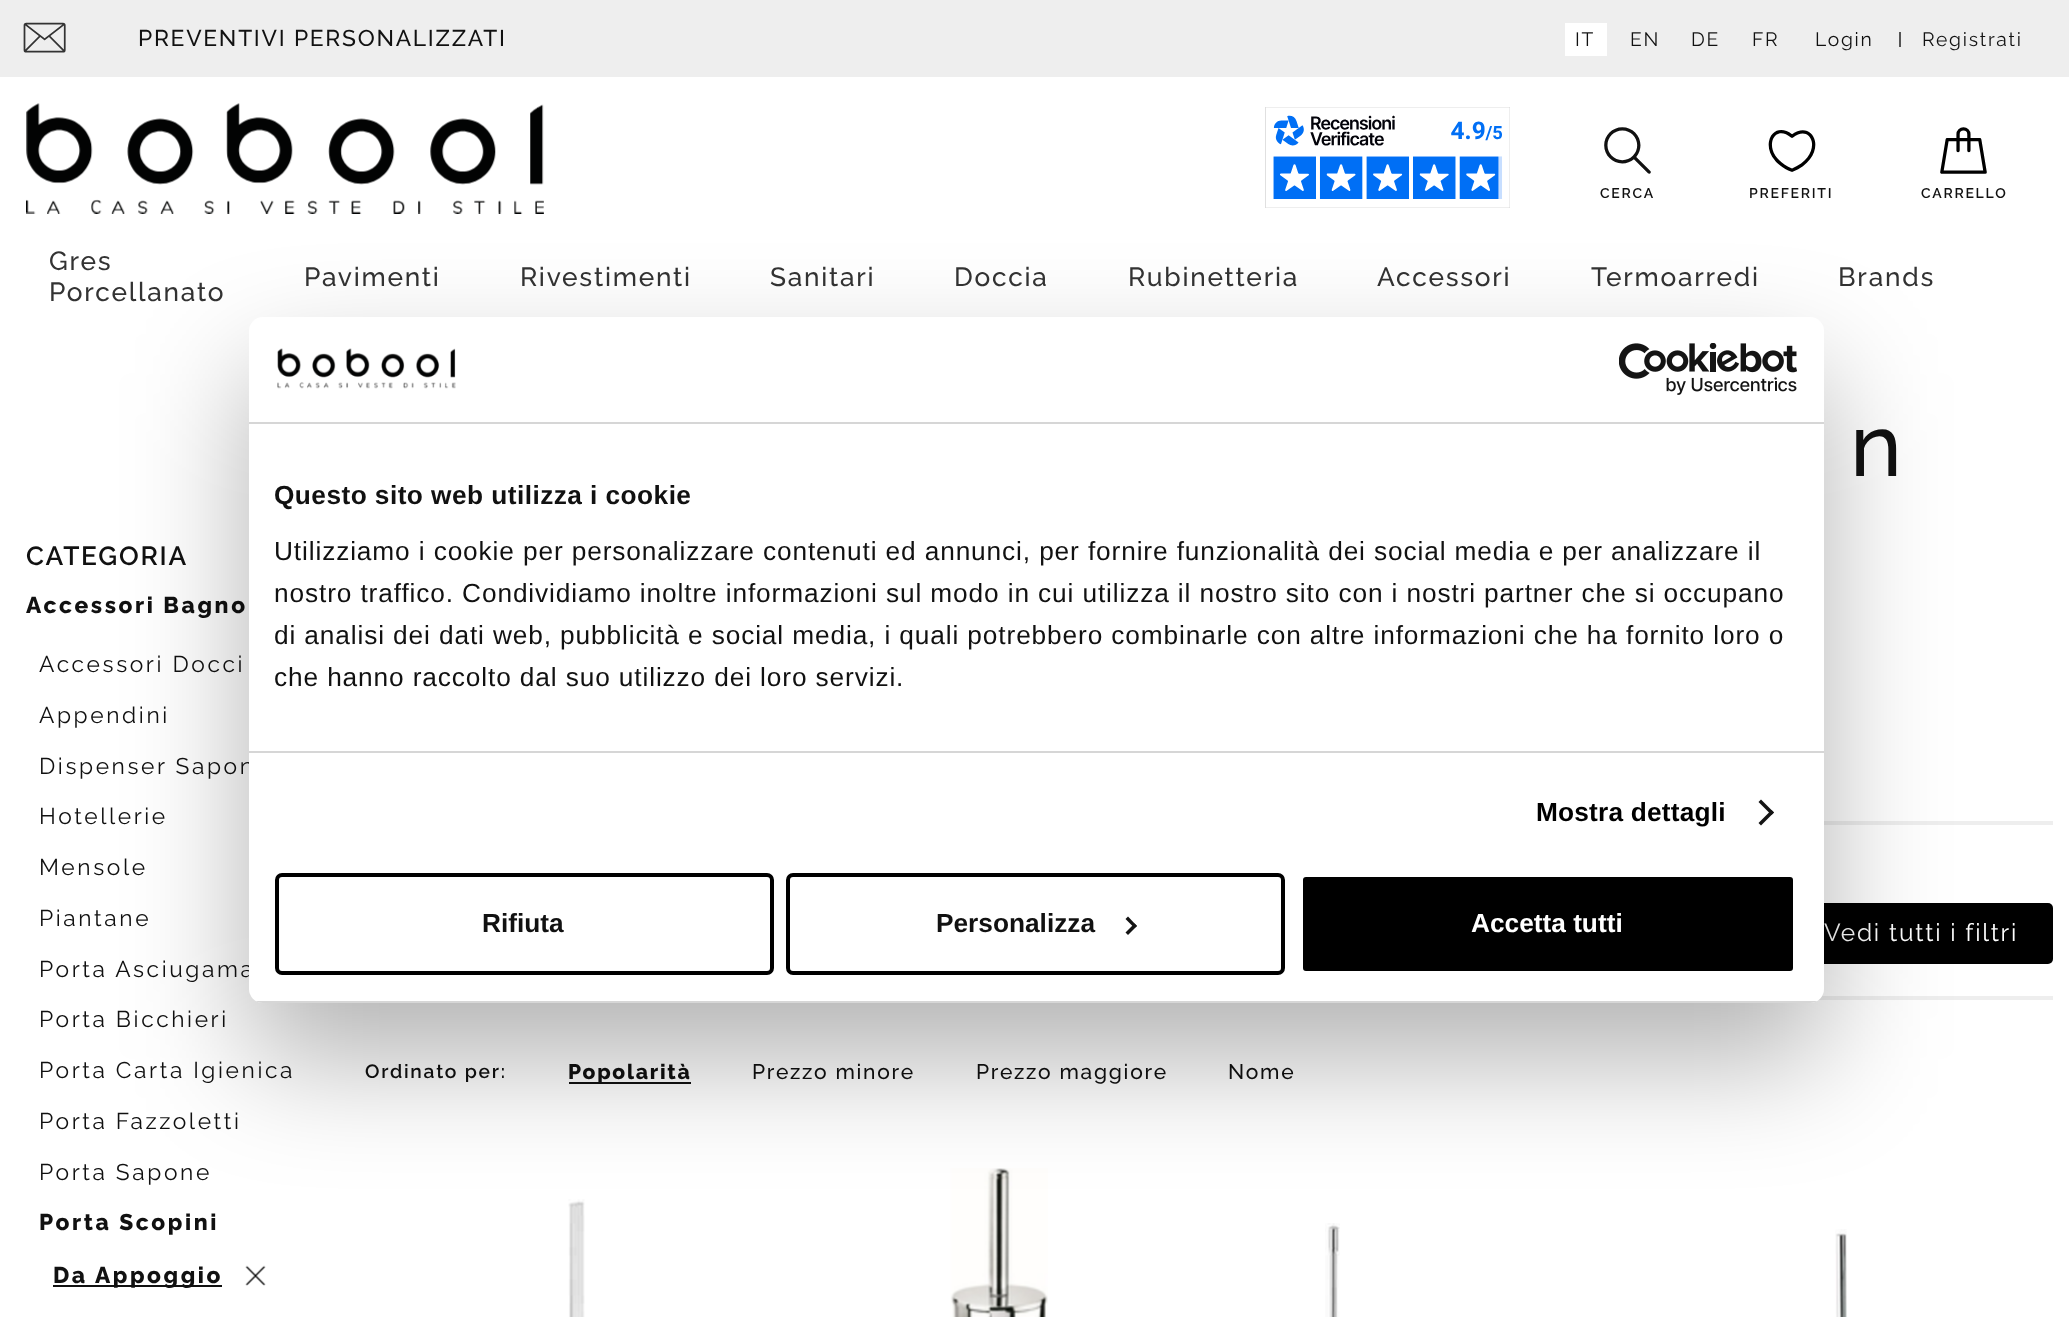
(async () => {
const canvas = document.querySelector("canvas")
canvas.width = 2069
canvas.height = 1317
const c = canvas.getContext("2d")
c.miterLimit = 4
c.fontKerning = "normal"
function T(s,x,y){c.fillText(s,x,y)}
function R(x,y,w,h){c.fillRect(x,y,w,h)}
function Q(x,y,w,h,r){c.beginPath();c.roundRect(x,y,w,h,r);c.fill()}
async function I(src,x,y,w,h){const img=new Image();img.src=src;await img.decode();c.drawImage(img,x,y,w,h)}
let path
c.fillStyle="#fff"
R(0,0,2069,1317)
c.fillStyle="#eee"
R(0,0,2069,77)
await I("1.png",23,22,43,31)
c.letterSpacing="1.75px"
c.font="500 22.75px Raleway"
c.fillStyle="#111"
T("PREVENTIVI PERSONALIZZATI",138,46)
c.fillStyle="#fff"
R(1565,23,42,33)
c.font="19.25px Raleway"
c.fillStyle="#111"
T("IT",1575,46)
T("EN",1630,46)
T("DE",1691,46)
T("FR",1752,46)
T("Login",1815,46)
c.fillStyle="#555"
R(1899,32,2,15)
c.fillStyle="#111"
T("Registrati",1922,46)
await I("2.png",26,103,518,111)
await I("3.png",1265,107,245,101)
await I("4.png",1604,127,47,47)
c.font="600 14px Raleway"
T("CERCA",1600,198)
await I("5.png",1768,130,48,42)
T("PREFERITI",1749,198)
await I("6.png",1940,127,47,47)
T("CARRELLO",1921,198)
c.font="500 26.25px Raleway"
c.fillStyle="#333"
T("Gres",49,270)
T("Porcellanato",49,301)
T("Pavimenti",304,286)
T("Rivestimenti",520,286)
T("Sanitari",770,286)
T("Doccia",954,286)
T("Rubinetteria",1128,286)
T("Accessori",1377,286)
T("Termoarredi",1591,286)
T("Brands",1838,286)
c.letterSpacing="5px"
c.font="500 88px Raleway"
c.fillStyle="#111"
T("n",1850,476)
c.fillStyle="#eee"
R(1818,996,235,4)
c.letterSpacing="1.75px"
c.font="600 26.25px Raleway"
c.fillStyle="#111"
T("CATEGORIA",26,565)
c.letterSpacing="2.6px"
c.font="800 22.75px Raleway"
T("Accessori Bagno",26,613)
c.font="22.75px Raleway"
T("Accessori Docci",39,672)
T("Appendini",39,723)
T("Dispenser Sapon",39,774)
T("Hotellerie",39,824)
T("Mensole",39,875)
T("Piantane",39,926)
T("Porta Asciugama",39,977)
T("Porta Bicchieri",39,1027)
T("Porta Carta Igienica",39,1078)
T("Porta Fazzoletti",39,1129)
T("Porta Sapone",39,1180)
c.font="800 22.75px Raleway"
T("Porta Scopini",39,1230)
R(53,1285,169,2)
T("Da Appoggio",53,1283)
await I("7.png",245,1265,21,21)
c.fillStyle="#000"
Q(1789,903,264,61,5)
c.letterSpacing="1.75px"
c.font="24.5px Raleway"
c.fillStyle="#fff"
T("Vedi tutti i filtri",1824,941)
c.fillStyle="#eee"
R(1824,821,229,4)
c.font="600 19.25px Raleway"
c.fillStyle="#111"
T("Ordinato per:",365,1078)
R(569,1082,122,2)
c.font="800 21px Raleway"
T("Popolarità",568,1079)
c.font="500 21px Raleway"
T("Prezzo minore",752,1079)
T("Prezzo maggiore",976,1079)
T("Nome",1228,1079)
await I("8.png",568,1199,17,118)
await I("9.png",950,1168,98,149)
await I("10.png",1325,1223,15,94)
await I("11.png",1835,1229,12,88)
c.fillStyle="#0000004d"
c.filter="blur(59.5px)"
c.beginPath()
c.roundRect(249,373,1575,686,14)
c.fill()
c.filter="none"
c.fillStyle="#fff"
Q(249,317,1575,686,14)
c.fillStyle="#d6d6d6"
R(249,422,1575,2)
await I("12.png",277,348,179,41)
await I("13.png",1619,343,178,52)
R(249,751,1575,2)
c.letterSpacing="0.45px"
c.font="bold 26.25px Liberation Sans"
c.fillStyle="#111"
T("Questo sito web utilizza i cookie",274,504)
c.letterSpacing="0.88px"
c.font="26.25px Liberation Sans"
T("Utilizziamo i cookie per personalizzare contenuti ed annunci, per fornire funzionalità dei social media e per analizzare il",274,560)
T("nostro traffico. Condividiamo inoltre informazioni sul modo in cui utilizza il nostro sito con i nostri partner che si occupano",274,602)
T("di analisi dei dati web, pubblicità e social media, i quali potrebbero combinarle con altre informazioni che ha fornito loro o",274,644)
T("che hanno raccolto dal suo utilizzo dei loro servizi.",274,686)
c.letterSpacing="0.2px"
c.font="bold 26.25px Liberation Sans"
c.fillStyle="#000"
T("Mostra dettagli",1536,821)
c.fillStyle="#141414"
path = new Path2D("M1761 799.5l13 13l-2.5 2.5l-13-13z")
c.fill(path)
path = new Path2D("M1771.5 810l2.5 2.5l-13 13l-2.5-2.5z")
c.fill(path)
c.save()
c.beginPath()
c.roundRect(249,317,1575,686,14)
c.clip()
c.fillStyle="#d6d6d6"
R(249,1001,1575,2)
c.restore()
c.beginPath()
c.roundRect(277,875,495,98,5)
c.strokeStyle="#000"
c.lineWidth=4
c.stroke()
c.letterSpacing="0px"
c.fillStyle="#111"
T("Rifiuta",482,932)
c.beginPath()
c.roundRect(788,875,495,98,5)
c.stroke()
T("Personalizza",936,932)
c.fillStyle="#141414"
path = new Path2D("M1128 916.5l9 9.5l-2.5 2l-9-9z")
c.fill(path)
path = new Path2D("M1134.5 923.5l2.5 2.5l-9 9l-2.5-2.5z")
c.fill(path)
c.fillStyle="#000"
c.beginPath()
c.roundRect(1301,875,494,98,5)
c.fill()
c.strokeStyle="#fff"
c.stroke()
c.fillStyle="#fff"
T("Accetta tutti",1471,932)
})()
